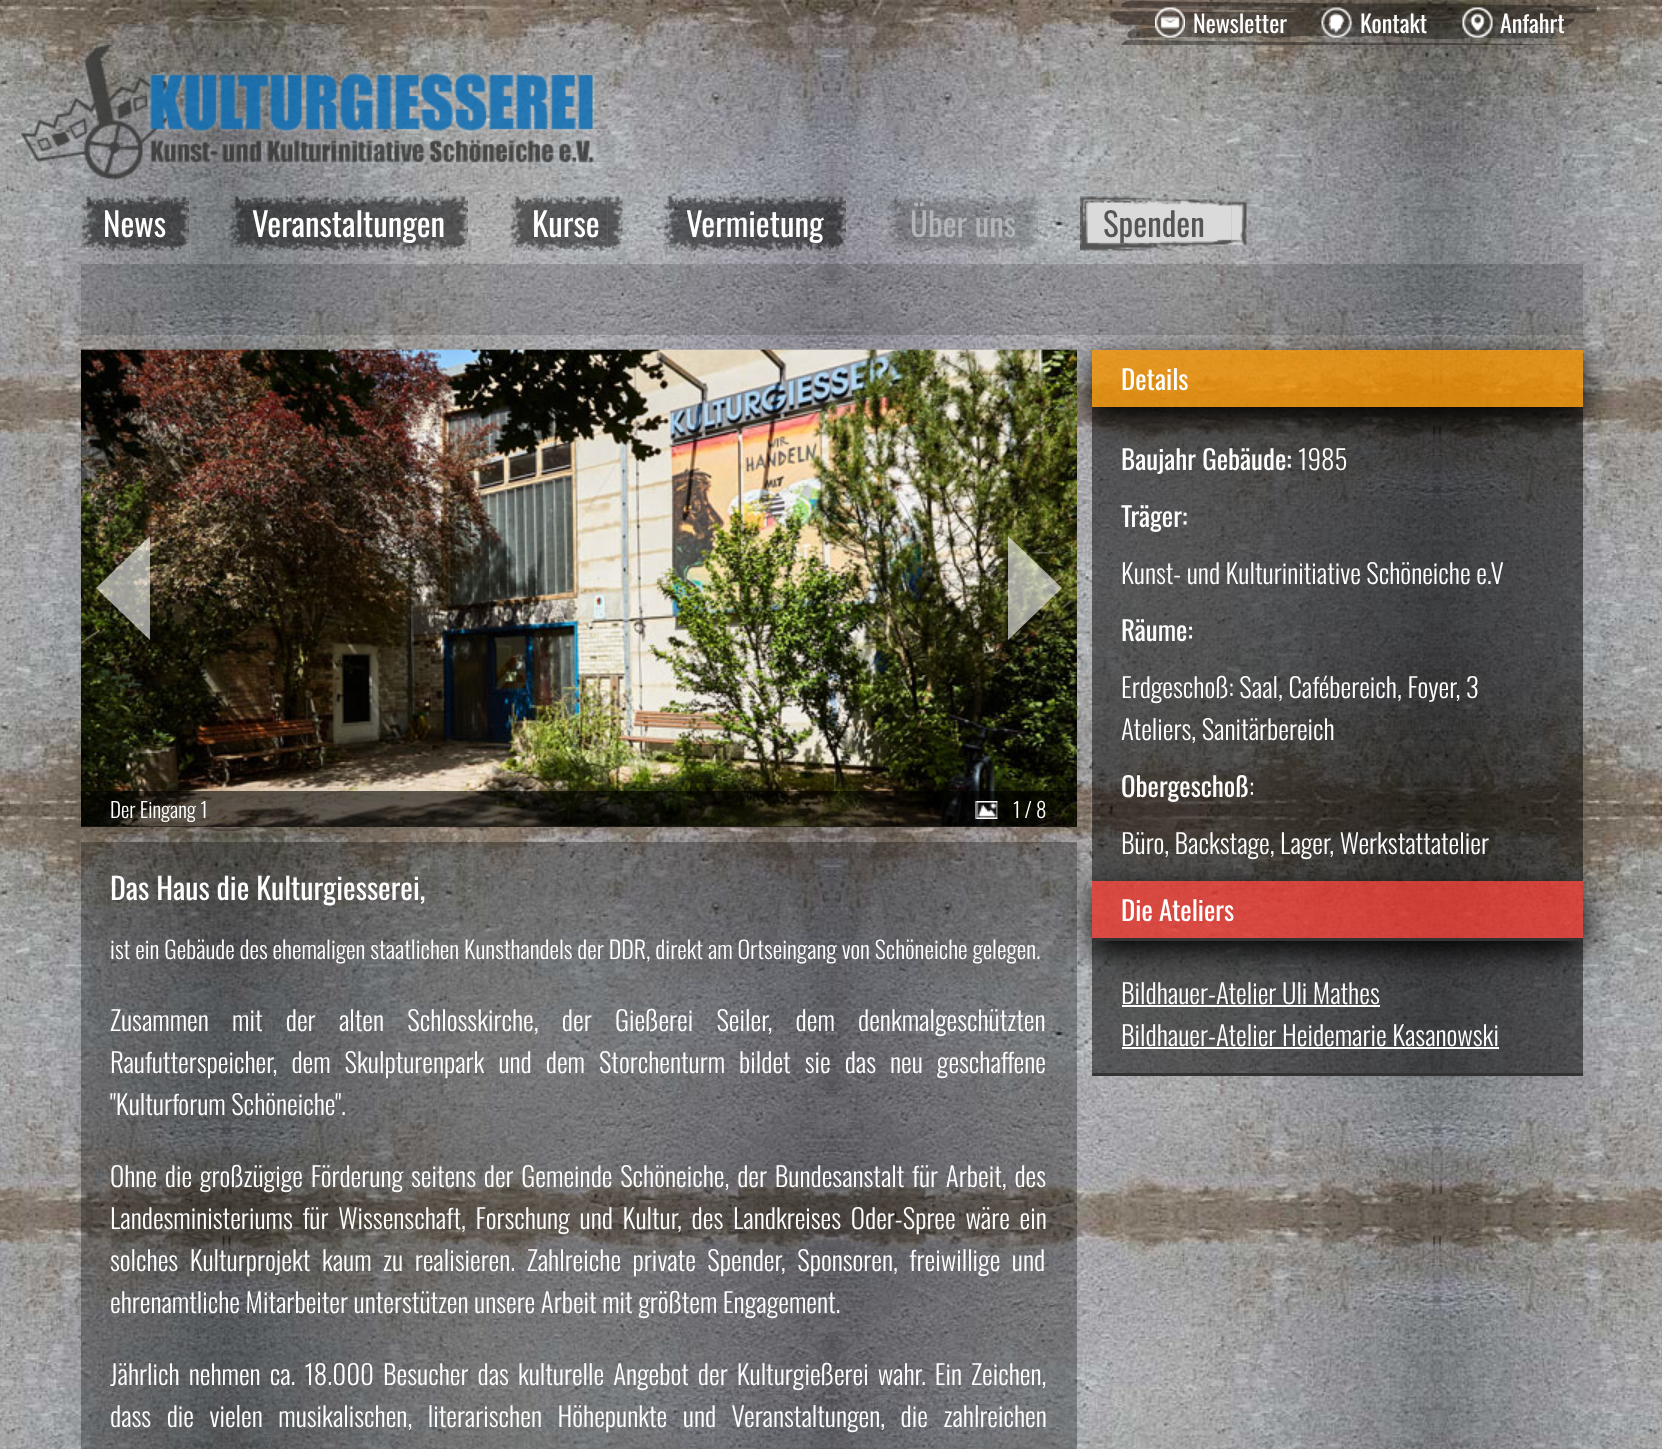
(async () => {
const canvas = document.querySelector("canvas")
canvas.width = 1662
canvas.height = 1449
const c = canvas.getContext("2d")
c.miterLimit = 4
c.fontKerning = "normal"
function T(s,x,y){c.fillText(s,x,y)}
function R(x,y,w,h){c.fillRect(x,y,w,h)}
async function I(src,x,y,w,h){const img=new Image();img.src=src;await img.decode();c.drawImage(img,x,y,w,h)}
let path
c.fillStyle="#fff"
R(0,0,1662,1449)
await I("1.png",0,0,1662,1449)
await I("2.png",1108,0,490,45)
await I("3.png",1155,7,30,31)
c.font="24px Oswald"
T("Newsletter",1193,33)
await I("4.png",1321,7,31,31)
T("Kontakt",1360,33)
await I("5.png",1462,7,31,31)
T("Anfahrt",1500,33)
await I("6.png",21,45,576,135)
await I("7.png",81,196,15,55)
await I("8.png",96,196,78,55)
c.font="33px Oswald"
T("News",103,237)
await I("9.png",174,196,15,55)
await I("10.png",229,196,16,55)
await I("11.png",244,196,209,55)
T("Veranstaltungen",252,237)
await I("12.png",453,196,15,55)
await I("13.png",510,196,15,55)
await I("14.png",525,196,83,55)
T("Kurse",532,237)
await I("15.png",607,196,16,55)
await I("16.png",663,196,15,55)
await I("17.png",678,196,153,55)
T("Vermietung",686,237)
await I("18.png",831,196,15,55)
await I("19.png",888,196,15,55)
await I("20.png",903,196,120,55)
c.fillStyle="#b3b5b8"
T("Über uns",910,237)
await I("21.png",1023,196,15,55)
await I("22.png",1080,196,15,55)
await I("23.png",1095,196,137,55)
c.fillStyle="#555"
T("Spenden",1103,237)
await I("24.png",1231,200,16,47)
c.fillStyle="#00000026"
R(81,264,1502,71)
await I("25.png",81,349,996,478)
c.fillStyle="#0000004d"
R(81,826,996,1)
await I("26.png",81,349,996,478)
c.fillStyle="#ffffff99"
path = new Path2D("M150 536v104l-54-52z")
c.fill(path)
path = new Path2D("M1008 640v-104l54 52z")
c.fill(path)
c.fillStyle="#00000099"
R(81,791,996,36)
c.font="300 21px Oswald"
c.fillStyle="#fff"
T("Der Eingang 1",110,818)
await I("27.png",975,801,23,18)
T("1 / 8",1013,818)
c.fillStyle="#333"
R(1092,1073,491,3)
c.fillStyle="#00000080"
R(1092,407,491,474)
c.save()
path = new Path2D("M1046 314h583v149h-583zm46 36h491v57h-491z")
c.clip(path,"evenodd")
c.fillStyle="#000"
c.filter="blur(15px)"
c.beginPath()
c.rect(1092,360,491,57)
c.fill()
c.filter="none"
c.restore()
c.fillStyle="#f39200cc"
R(1092,350,491,57)
c.font="27px Oswald"
c.fillStyle="#fff"
T("Details",1121,390)
T("Baujahr Gebäude:",1121,470)
c.font="300 27px Oswald"
T("1985",1298,470)
c.font="27px Oswald"
T("Träger:",1121,527)
c.font="300 27px Oswald"
T("Kunst- und Kulturinitiative Schöneiche e.V",1121,584)
c.font="27px Oswald"
T("Räume:",1121,641)
c.font="300 27px Oswald"
T("Erdgeschoß: Saal, Cafébereich, Foyer, 3",1121,698)
T("Ateliers, Sanitärbereich",1121,740)
c.font="27px Oswald"
T("Obergeschoß",1121,797)
c.font="300 27px Oswald"
T(":",1249,797)
T("Büro, Backstage, Lager, Werkstattatelier",1121,854)
c.fillStyle="#00000080"
R(1092,941,491,132)
c.fillStyle="#0000004d"
R(81,842,996,607)
c.save()
path = new Path2D("M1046 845h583v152h-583zm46 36h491v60h-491z")
c.clip(path,"evenodd")
c.fillStyle="#000"
c.filter="blur(15px)"
c.beginPath()
c.rect(1092,891,491,60)
c.fill()
c.filter="none"
c.restore()
c.fillStyle="#e6332acc"
R(1092,881,491,57)
c.fillStyle="#333"
R(1092,938,491,3)
c.font="27px Oswald"
c.fillStyle="#fff"
T("Die Ateliers",1121,921)
c.font="300 27px Oswald"
T("Bildhauer-Atelier Uli Mathes",1121,1004)
R(1122,1005,258,2)
T("Bildhauer-Atelier Heidemarie Kasanowski",1121,1046)
R(1122,1047,377,2)
c.font="30px Oswald"
T("Das Haus die Kulturgiesserei,",110,900)
c.font="300 24px Oswald"
T("ist ein Gebäude des ehemaligen staatlichen Kunsthandels der DDR, direkt am Ortseingang von Schöneiche gelegen.",110,959)
c.wordSpacing="17.75px"
c.font="300 27px Oswald"
T("Zusammen mit der alten Schlosskirche, der Gießerei Seiler, dem denkmalgeschützten",110,1031)
c.wordSpacing="8.5px"
T("Raufutterspeicher, dem Skulpturenpark und dem Storchenturm bildet sie das neu geschaffene",110,1073)
c.wordSpacing="0px"
T("\"Kulturforum Schöneiche\".",110,1115)
c.wordSpacing="2.25px"
T("Ohne die großzügige Förderung seitens der Gemeinde Schöneiche, der Bundesanstalt für Arbeit, des",110,1187)
c.wordSpacing="4.25px"
T("Landesministeriums für Wissenschaft, Forschung und Kultur, des Landkreises Oder-Spree wäre ein",110,1229)
c.wordSpacing="6px"
T("solches Kulturprojekt kaum zu realisieren. Zahlreiche private Spender, Sponsoren, freiwillige und",110,1271)
c.wordSpacing="0px"
T("ehrenamtliche Mitarbeiter unterstützen unsere Arbeit mit größtem Engagement.",110,1313)
c.wordSpacing="3.5px"
T("Jährlich nehmen ca. 18.000 Besucher das kulturelle Angebot der Kulturgießerei wahr. Ein Zeichen,",110,1385)
c.wordSpacing="10px"
T("dass die vielen musikalischen, literarischen Höhepunkte und Veranstaltungen, die zahlreichen",110,1427)
})()
